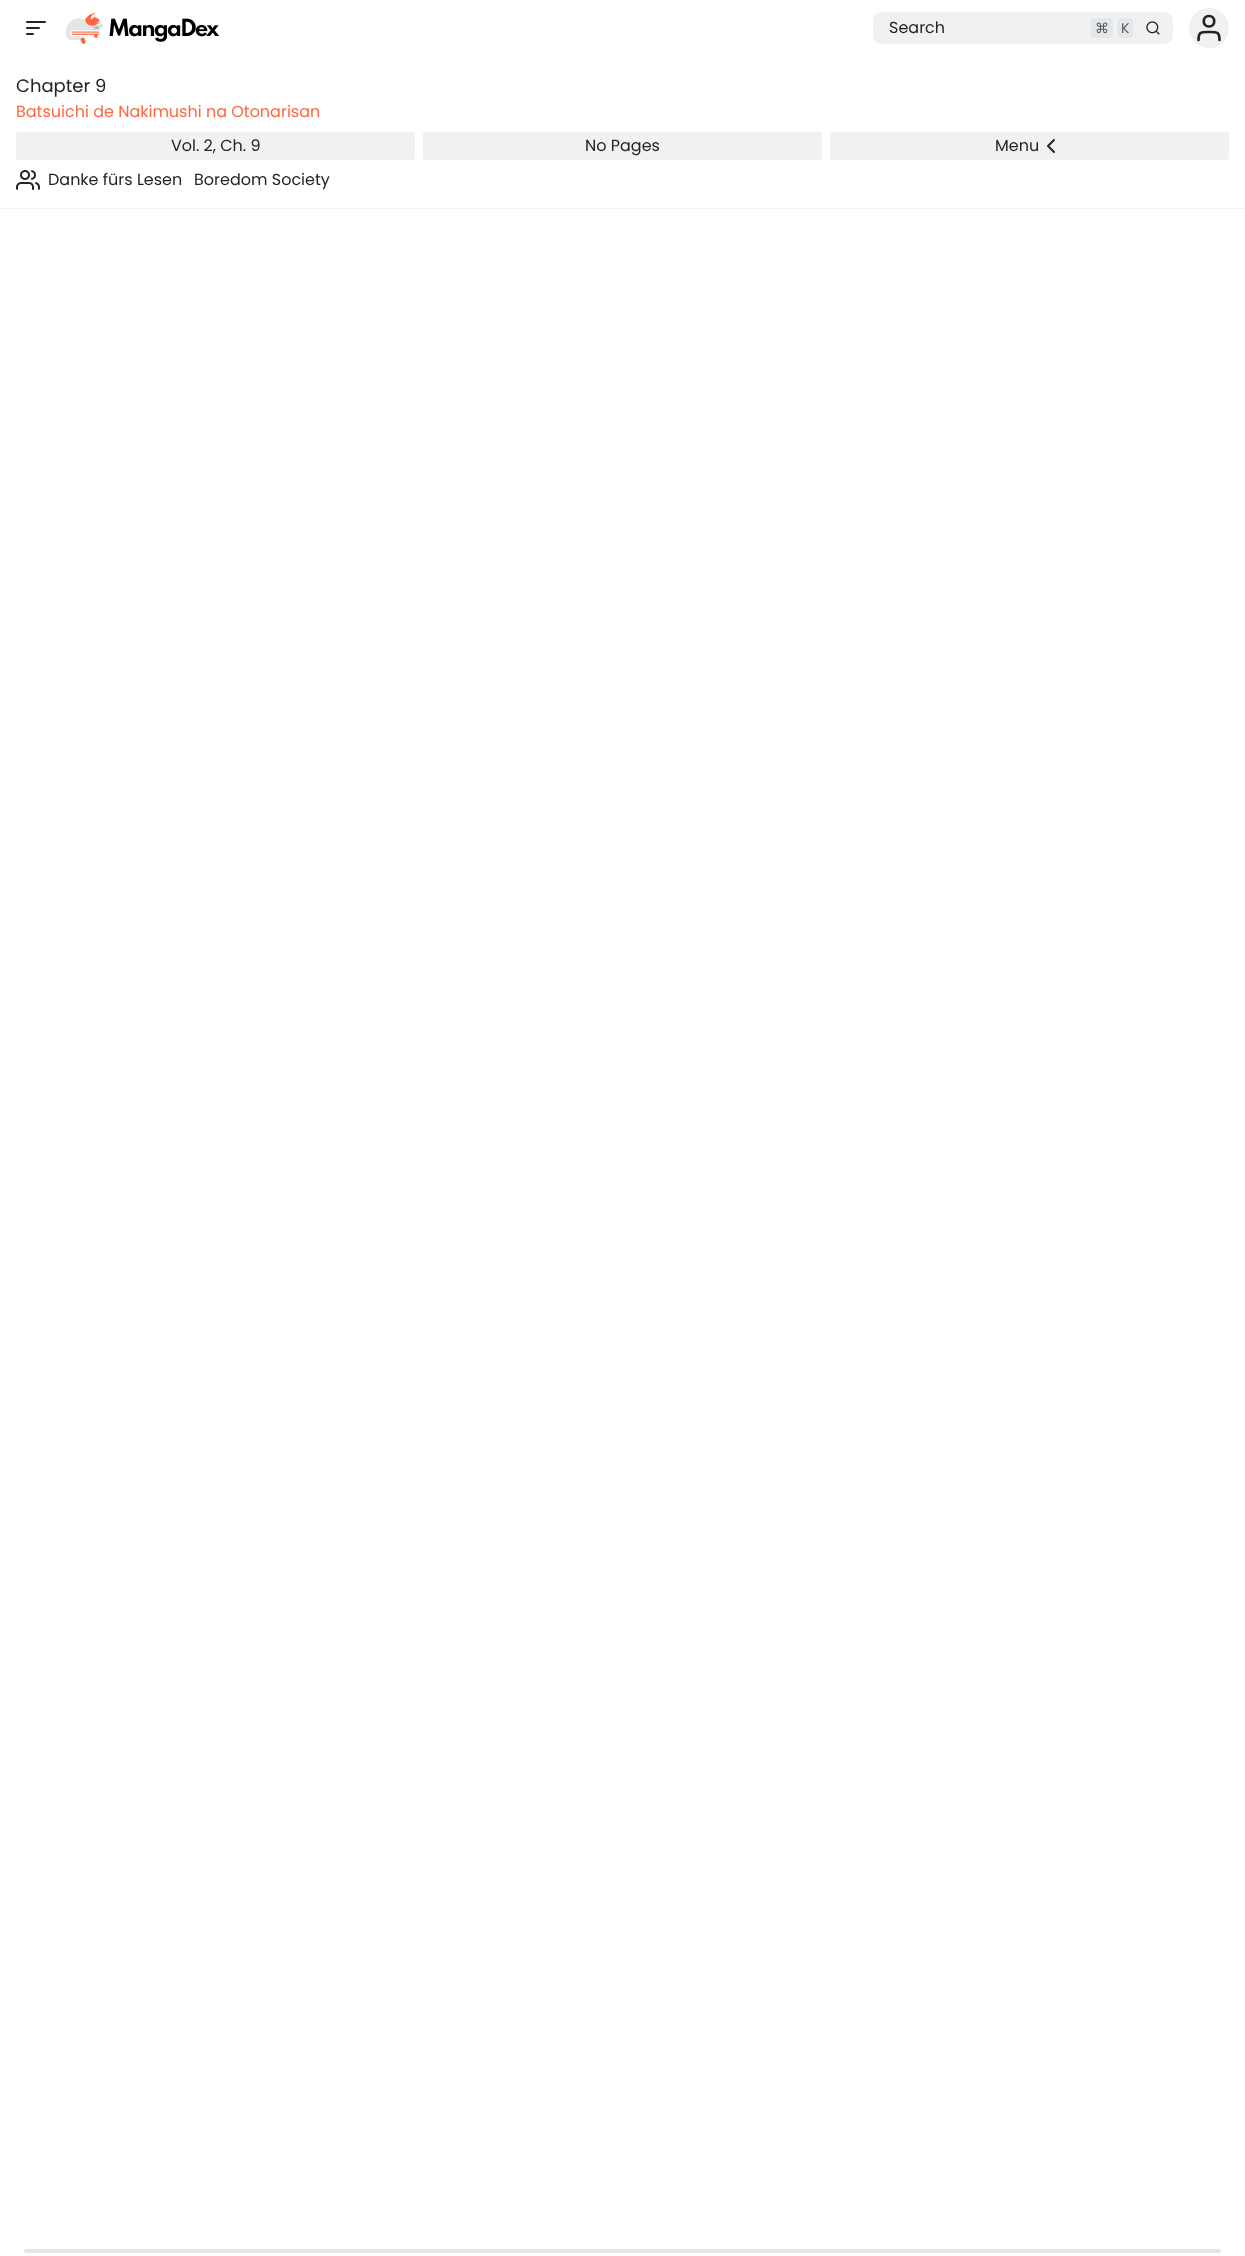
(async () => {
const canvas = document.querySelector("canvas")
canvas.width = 1245
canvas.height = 2256
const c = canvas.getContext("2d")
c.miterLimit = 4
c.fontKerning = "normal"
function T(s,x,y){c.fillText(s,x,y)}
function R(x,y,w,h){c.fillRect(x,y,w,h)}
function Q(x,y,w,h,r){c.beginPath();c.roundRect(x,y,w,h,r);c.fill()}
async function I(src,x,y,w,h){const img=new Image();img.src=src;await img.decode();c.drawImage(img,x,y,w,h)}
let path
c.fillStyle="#fff"
R(0,0,1245,2256)
path = new Path2D("M27 28h12m-12-6h18m-18 12h6")
c.strokeStyle="#242424"
c.lineWidth=2
c.lineCap="round"
c.lineJoin="round"
c.stroke(path)
await I("1.png",66,13,37,31)
await I("2.png",109,18,111,24)
c.fillStyle="#f0f1f2"
Q(873,12,300,32,8)
c.font="16px Poppins"
c.fillStyle="#242424"
T("Search",889,33)
c.fillStyle="#e4e7e9"
Q(1091,18,22,20,4)
c.font="14px DejaVu Sans"
c.fillStyle="#575758"
T("⌘",1095,33)
c.fillStyle="#e4e7e9"
Q(1117,18,16,20,4)
c.font="14px Poppins"
c.fillStyle="#575758"
T("K",1121,33)
await I("3.png",1146,21,14,14)
c.fillStyle="#f0f1f2"
c.beginPath()
c.arc(1209,28,20,0,7)
c.fill()
path = new Path2D("M1219.5 40c0-8.5-3-8-10.5-8c-7.5 0-10.5-.5-10.5 8m10.5-13.5c7 0 7-10.5 0-10.5c-7 0-7 10.5 0 10.5")
c.lineWidth=2.7
c.stroke(path)
R(0,208,1245,1)
c.font="18px Poppins"
c.fillStyle="#242424"
T("Chapter 9",16,92)
c.font="16px Poppins"
c.fillStyle="#ff6740"
T("Batsuichi de Nakimushi na Otonarisan",16,117)
c.fillStyle="#f0f1f2"
Q(16,132,399,28,2)
c.fillStyle="#242424"
T("Vol. 2, Ch. 9",171,151)
c.fillStyle="#f0f1f2"
Q(423,132,399,28,2)
c.fillStyle="#242424"
T("No Pages",585,151)
c.fillStyle="#f0f1f2"
Q(830,132,399,28,2)
c.fillStyle="#242424"
T("Menu",995,151)
path = new Path2D("M1054 152l-6-6l6-6")
c.lineWidth=2
c.stroke(path)
await I("4.png",16,170,24,20)
T("Danke fürs Lesen",48,185)
T("Boredom Society",194,185)
c.fillStyle="#e4e7e9"
Q(24,2249,1197,4,2)
})()
